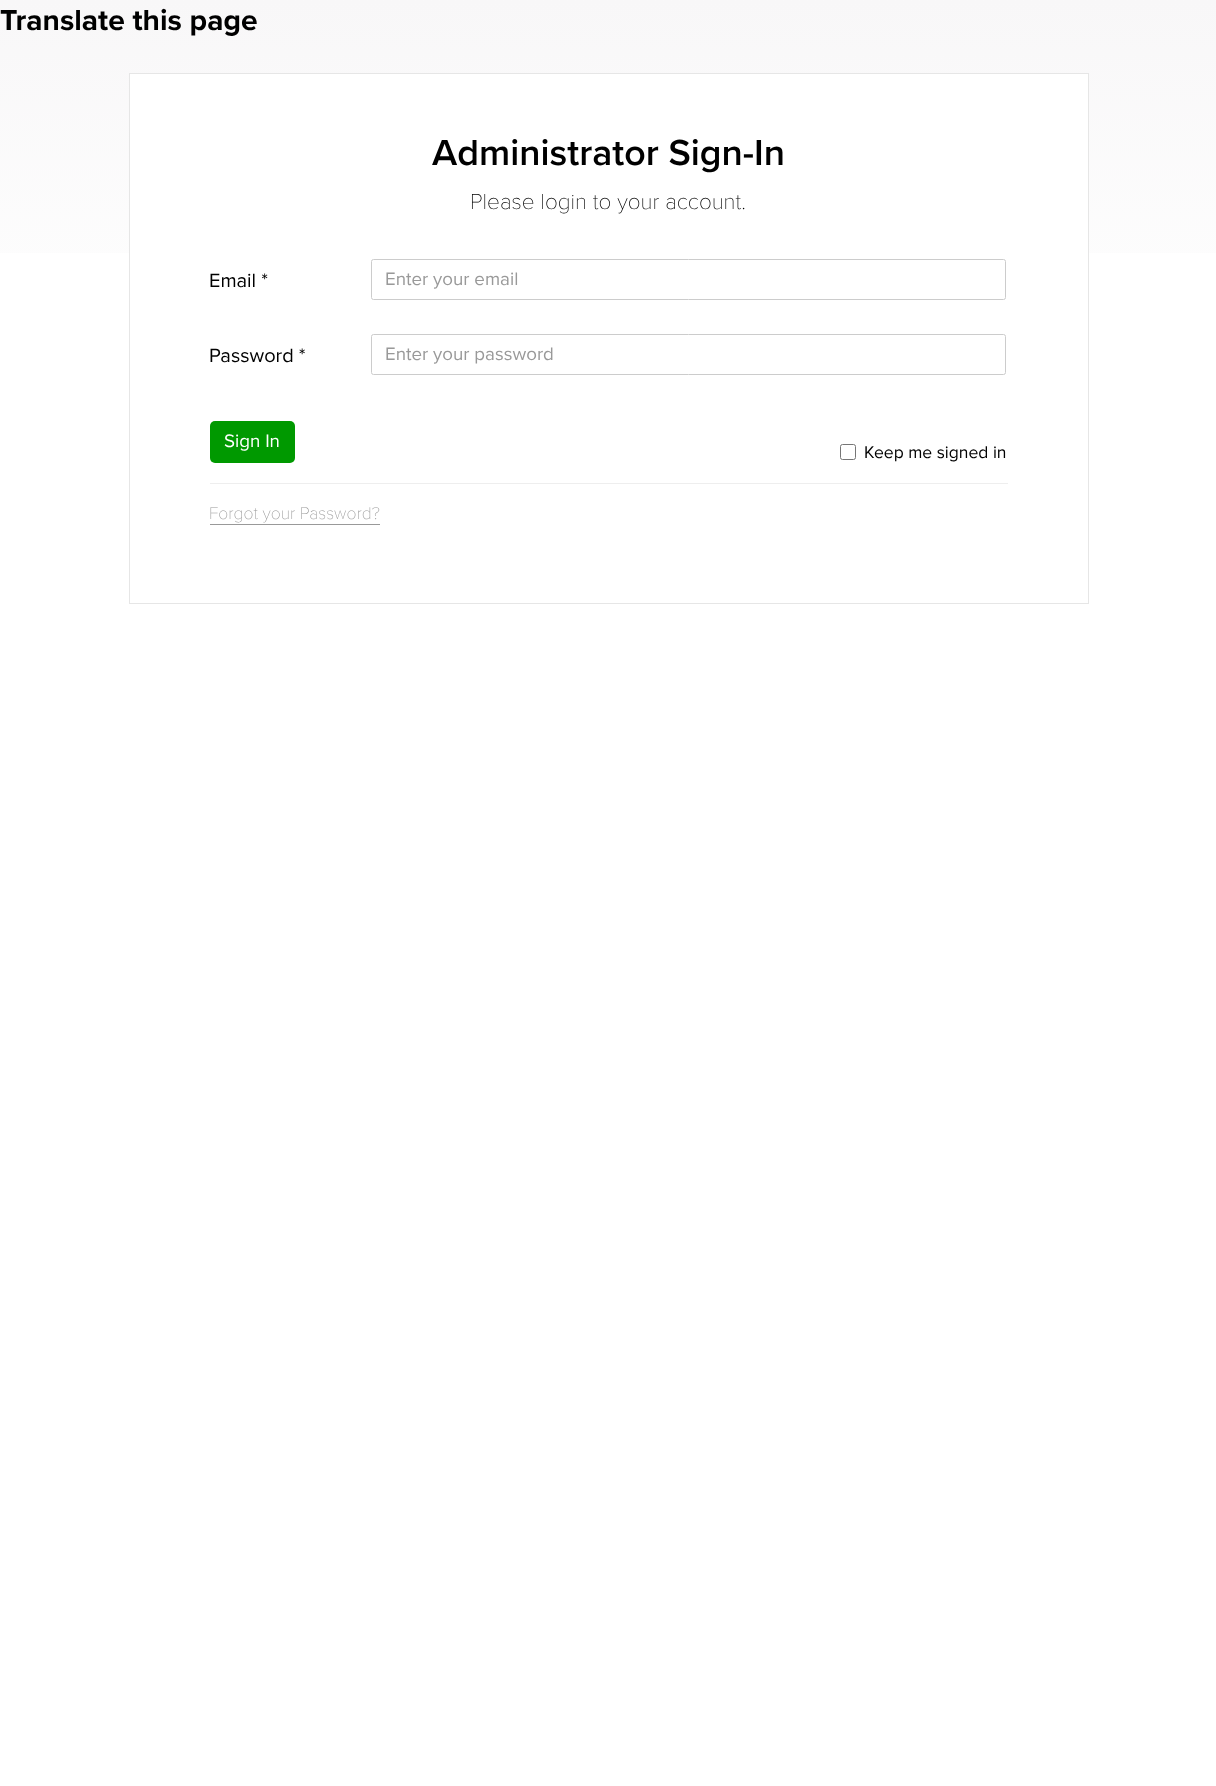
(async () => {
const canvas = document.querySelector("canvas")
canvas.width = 1216
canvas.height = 1786
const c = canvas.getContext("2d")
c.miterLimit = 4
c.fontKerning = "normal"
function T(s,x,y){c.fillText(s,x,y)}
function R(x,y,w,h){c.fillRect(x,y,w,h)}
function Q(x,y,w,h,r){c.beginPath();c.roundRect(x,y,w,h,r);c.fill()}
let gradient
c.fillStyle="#fff"
R(0,0,1216,1786)
gradient = c.createLinearGradient(608,0,608,1786)
gradient.addColorStop(0,"#f8f7f8")
gradient.addColorStop(.18,"#fefefe")
c.fillStyle = gradient
R(0,0,1216,253)
c.font="bold 30px Proxima Nova"
c.fillStyle="#000"
T("Translate this page",0,30)
c.fillStyle="#fff"
R(130,74,958,179)
c.strokeStyle="#e6e6e6"
c.strokeRect(129.5,73.5,959,530)
c.font="600 37.5px Proxima Nova"
c.fillStyle="#000"
T("Administrator Sign-In",432,165)
c.font="100 22.5px Proxima Nova"
T("Please login to your account.",470,209)
c.font="20px Proxima Nova"
T("Email *",209,287)
c.beginPath()
c.roundRect(371.5,259.5,634,40,2)
c.strokeStyle="#ccc"
c.stroke()
c.font="18.75px Proxima Nova"
c.fillStyle="#999"
T("Enter your email",385,285)
c.font="20px Proxima Nova"
c.fillStyle="#000"
T("Password *",209,362)
c.beginPath()
c.roundRect(371.5,334.5,634,40,2)
c.stroke()
c.font="18.75px Proxima Nova"
c.fillStyle="#999"
T("Enter your password",385,360)
c.fillStyle="#090"
Q(210,421,85,42,5)
c.fillStyle="#fff"
T("Sign In",224,447)
c.beginPath()
c.roundRect(840.5,444.5,15,15,2)
c.strokeStyle="#767676"
c.stroke()
c.font="17.5px Proxima Nova"
c.fillStyle="#000"
T("Keep me signed in",864,458)
c.fillStyle="#eee"
R(210,483,798,1)
c.font="100 17.5px Proxima Nova"
c.fillStyle="#999"
T("Forgot your Password?",209,519)
R(210,524,170,1)
})()
